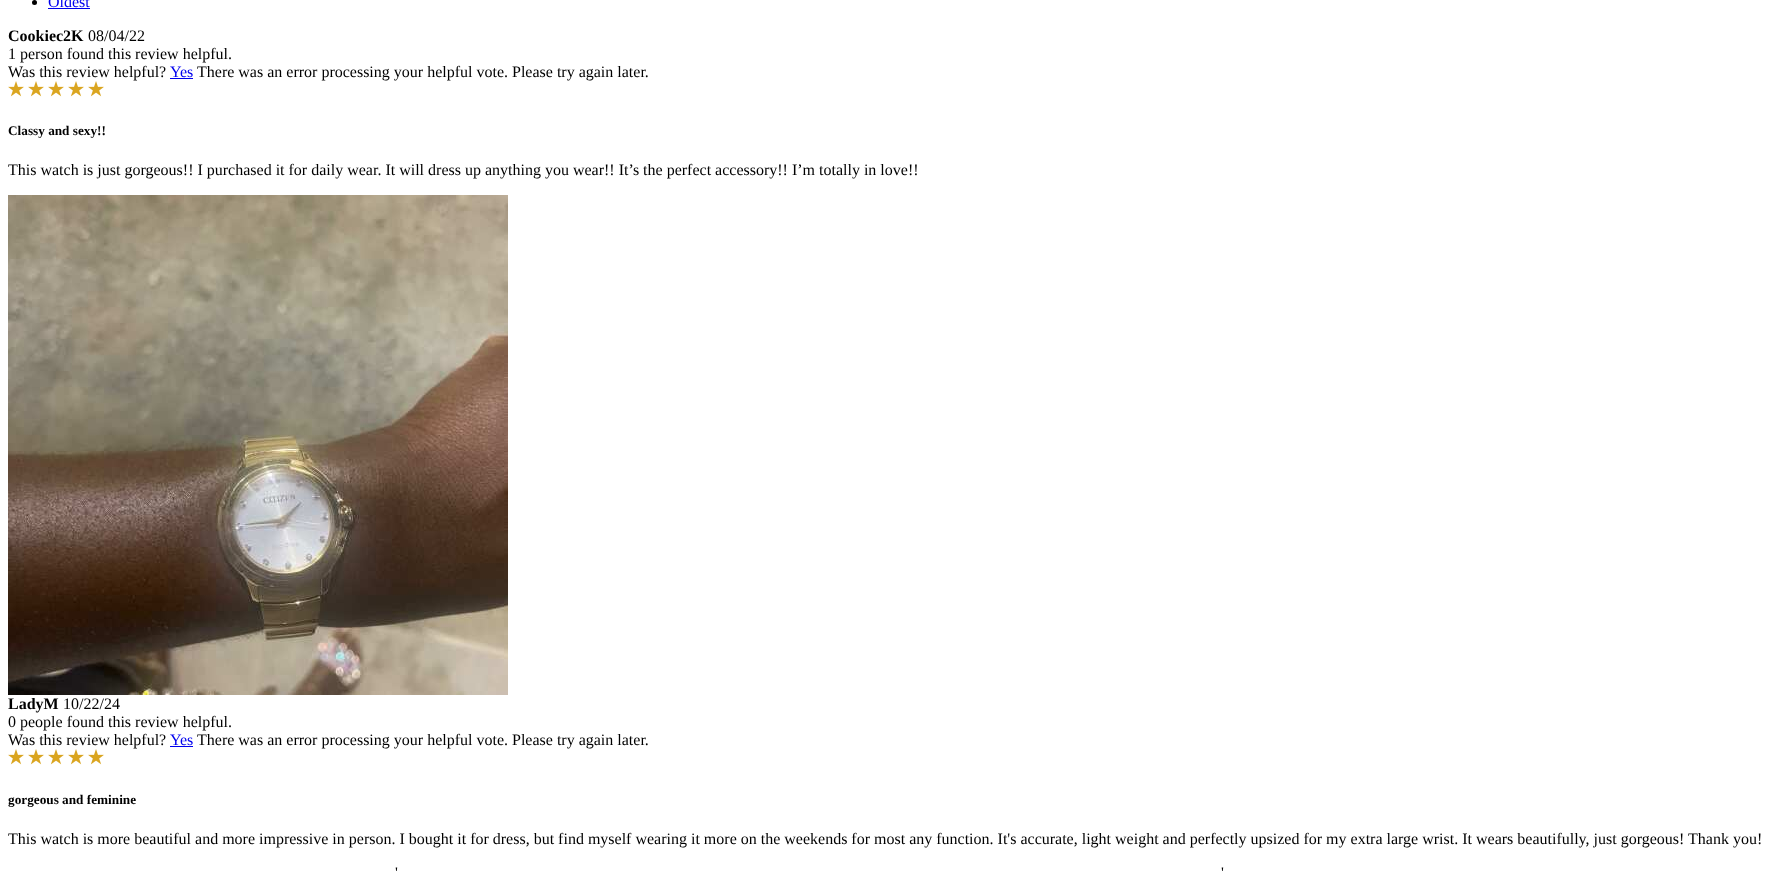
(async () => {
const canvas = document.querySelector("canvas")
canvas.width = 1789
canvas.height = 871
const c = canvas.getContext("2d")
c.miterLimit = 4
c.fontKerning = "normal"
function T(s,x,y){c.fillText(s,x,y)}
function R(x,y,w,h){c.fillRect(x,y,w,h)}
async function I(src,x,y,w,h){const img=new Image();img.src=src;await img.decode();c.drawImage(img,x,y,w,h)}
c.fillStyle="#fff"
R(0,0,1789,871)
c.fillStyle="#000"
c.beginPath()
c.arc(34.5,2.5,2.5,0,7)
c.fill()
c.font="16px Liberation Serif"
c.fillStyle="#00e"
T("Oldest",48,7)
R(48,8,42,1)
c.font="bold 16px Liberation Serif"
c.fillStyle="#000"
T("Cookiec2K",8,41)
c.font="16px Liberation Serif"
T("08/04/22",88,41)
T("1 person found this review helpful.",8,59)
T("Was this review helpful?",8,77)
c.fillStyle="#00e"
T("Yes",170,77)
R(170,78,23,1)
c.fillStyle="#000"
T("There was an error processing your helpful vote. Please try again later.",197,77)
await I("1.png",8,81,16,16)
await I("1.png",28,81,16,16)
await I("1.png",48,81,16,16)
await I("1.png",68,81,16,16)
await I("1.png",88,81,16,16)
c.font="bold 13.25px Liberation Serif"
T("Classy and sexy!!",8,135)
c.font="16px Liberation Serif"
T("This watch is just gorgeous!! I purchased it for daily wear. It will dress up anything you wear!! It’s the perfect accessory!! I’m totally in love!!",8,175)
await I("2.png",8,195,500,500)
c.font="bold 16px Liberation Serif"
T("LadyM",8,709)
c.font="16px Liberation Serif"
T("10/22/24",63,709)
T("0 people found this review helpful.",8,727)
T("Was this review helpful?",8,745)
c.fillStyle="#00e"
T("Yes",170,745)
R(170,746,23,1)
c.fillStyle="#000"
T("There was an error processing your helpful vote. Please try again later.",197,745)
await I("1.png",8,749,16,16)
await I("1.png",28,749,16,16)
await I("1.png",48,749,16,16)
await I("1.png",68,749,16,16)
await I("1.png",88,749,16,16)
c.font="bold 13.25px Liberation Serif"
T("gorgeous and feminine",8,804)
c.font="16px Liberation Serif"
T("This watch is more beautiful and more impressive in person. I bought it for dress, but find myself wearing it more on the weekends for most any function. It's accurate, light weight and perfectly upsized for my extra large wrist. It wears beautifully, just gorgeous! Thank you!",8,844)
T("'",395,878)
T("'",1221,878)
})()
